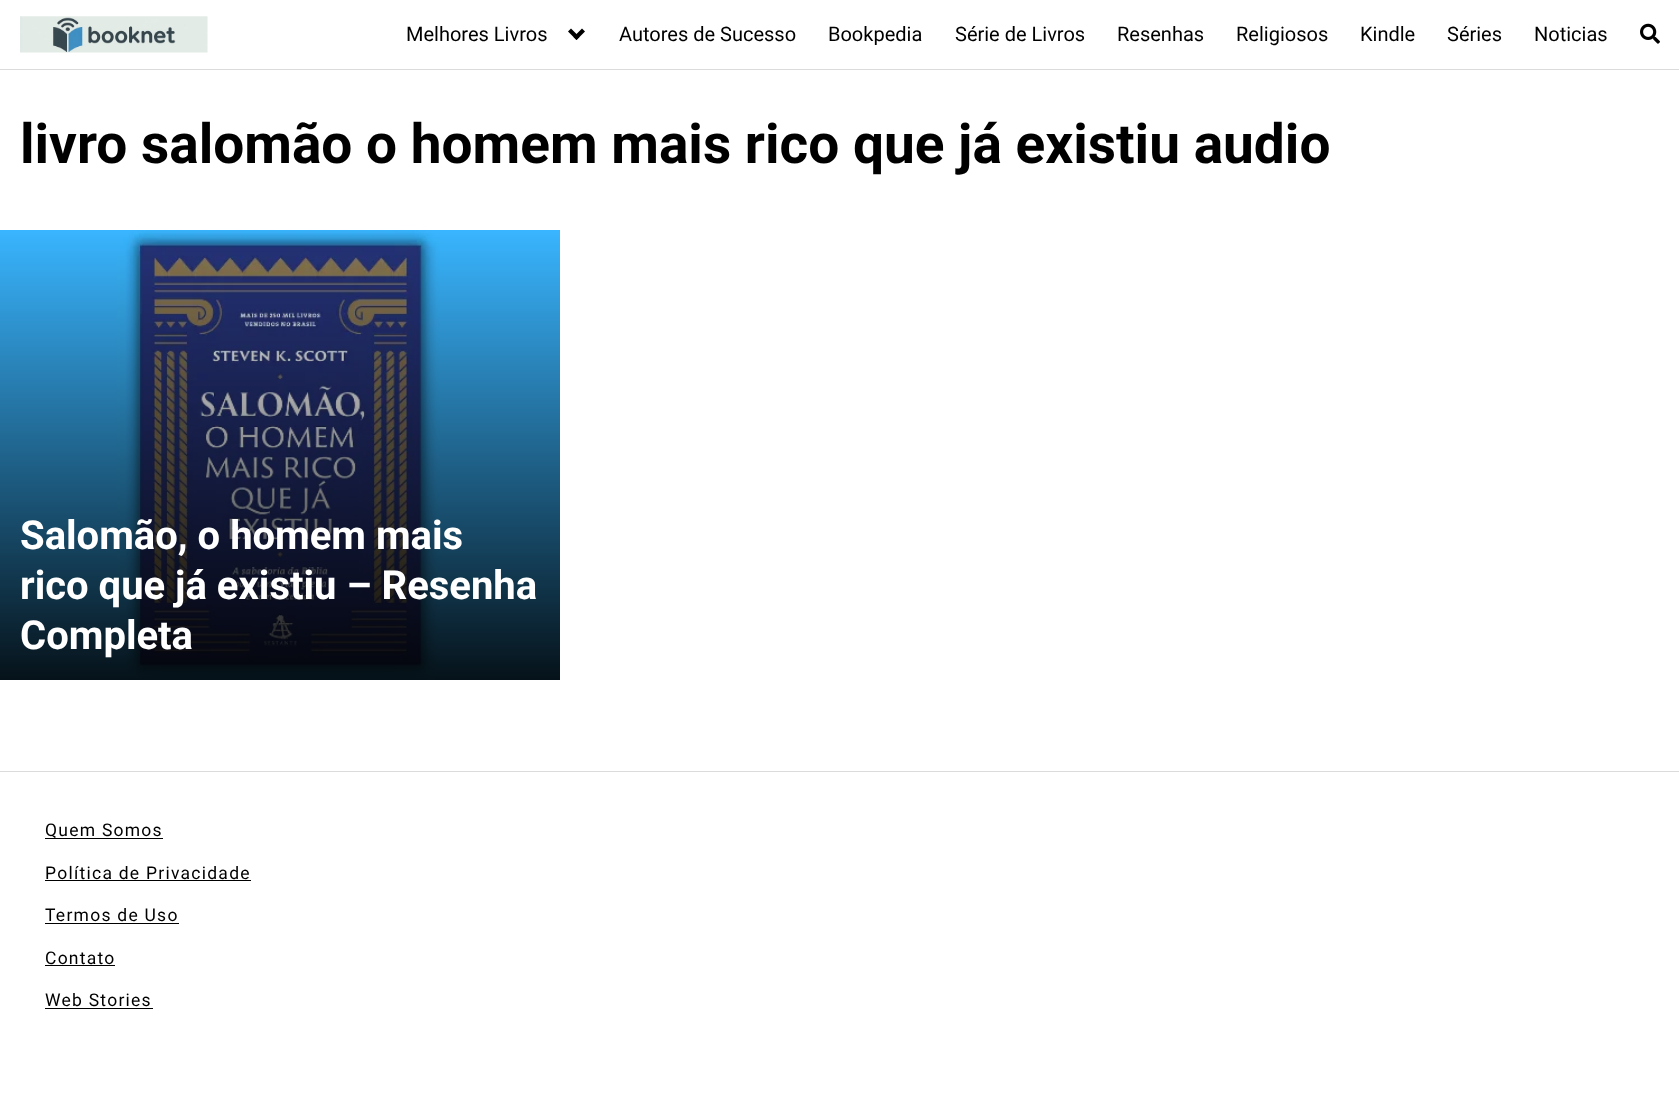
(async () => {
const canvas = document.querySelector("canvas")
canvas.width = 1679
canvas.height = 1098
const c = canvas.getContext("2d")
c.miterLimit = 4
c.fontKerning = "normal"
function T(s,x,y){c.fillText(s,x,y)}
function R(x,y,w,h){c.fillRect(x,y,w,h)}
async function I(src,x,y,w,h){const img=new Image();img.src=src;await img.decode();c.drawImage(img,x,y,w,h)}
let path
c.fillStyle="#fff"
R(0,0,1679,1098)
c.fillStyle="#dbdbdb"
R(0,69,1679,1)
await I("1.png",20,16,188,37)
c.font="20px Roboto"
c.fillStyle="#000"
T("Melhores Livros",406,41)
path = new Path2D("M568 31.5l3-3l8.5 8.5l-3 3z")
c.fill(path)
path = new Path2D("M573.5 37l8.5-8.5l3 3l-8.5 8.5z")
c.fill(path)
T("Autores de Sucesso",619,41)
T("Bookpedia",828,41)
T("Série de Livros",955,41)
T("Resenhas",1117,41)
T("Religiosos",1236,41)
T("Kindle",1360,41)
T("Séries",1447,41)
T("Noticias",1534,41)
await I("2.png",1640,23,20,21)
c.font="bold 55px Roboto"
T("livro salomão o homem mais rico que já existiu audio",20,163)
await I("3.png",0,230,560,450)
c.font="bold 40px Roboto"
c.fillStyle="#fff"
T("Salomão, o homem mais",20,549)
T("rico que já existiu – Resenha",20,599)
T("Completa",20,649)
c.fillStyle="#dbdbdb"
R(0,771,1679,1)
c.fillStyle="#000"
R(45,838,118,1)
c.letterSpacing="1.25px"
c.font="17.5px Roboto"
T("Quem Somos",45,836)
T("Política de Privacidade",45,879)
R(45,880,206,1)
T("Termos de Uso",45,921)
R(45,923,134,1)
T("Contato",45,964)
R(45,965,70,1)
T("Web Stories",45,1006)
R(45,1008,108,1)
})()
